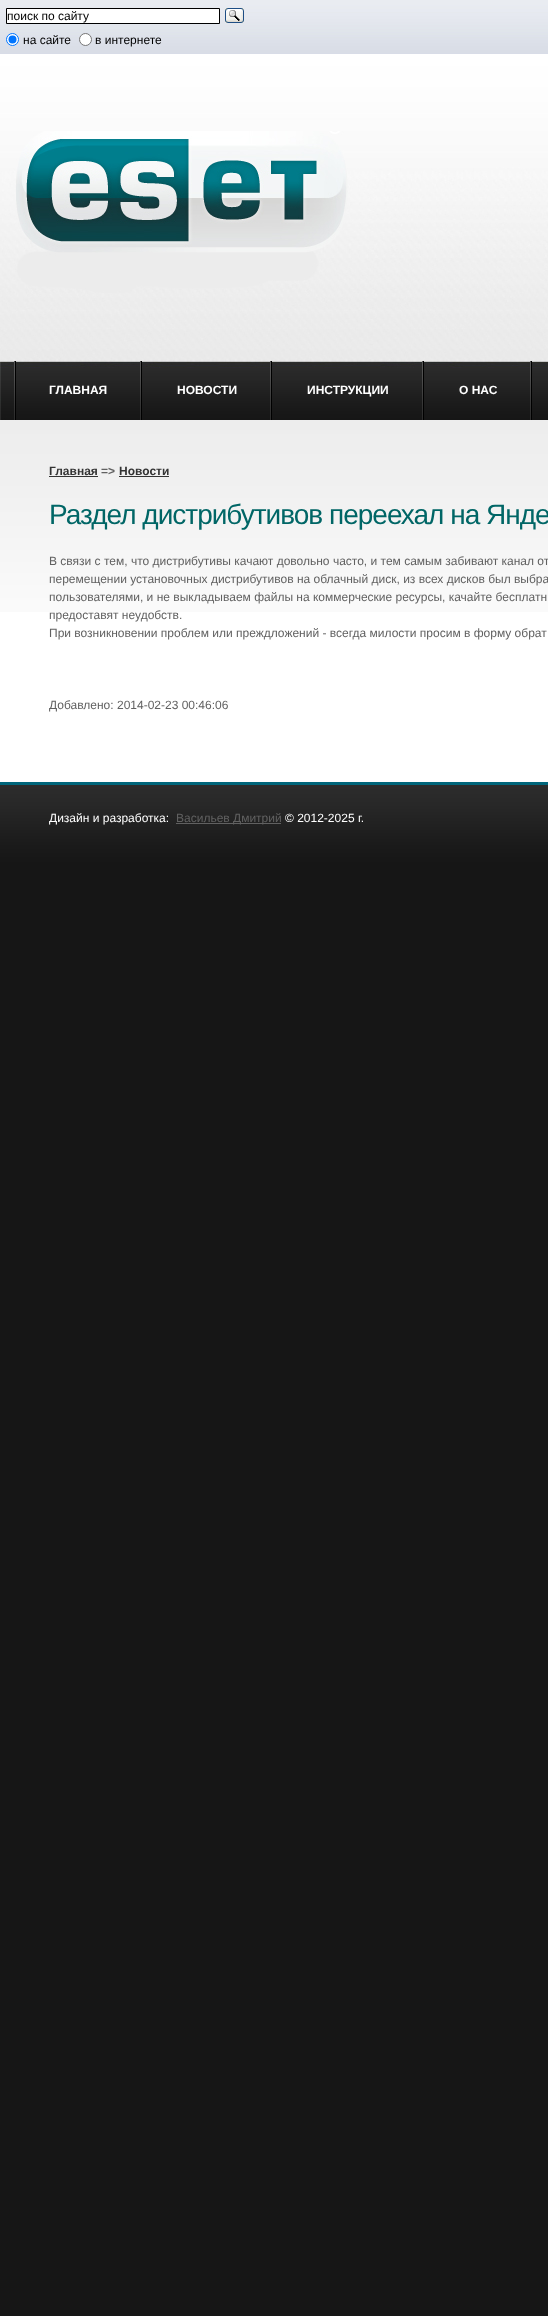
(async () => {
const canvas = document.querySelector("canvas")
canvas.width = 548
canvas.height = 2316
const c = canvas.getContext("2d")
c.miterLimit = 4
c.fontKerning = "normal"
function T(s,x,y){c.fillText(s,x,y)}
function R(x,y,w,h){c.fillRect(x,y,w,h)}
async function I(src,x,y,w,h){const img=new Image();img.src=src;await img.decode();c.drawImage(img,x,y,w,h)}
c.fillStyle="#161616"
R(0,0,548,2316)
c.fillStyle="#fff"
R(0,612,548,170)
await I("1.png",0,0,548,612)
await I("2.png",0,782,548,83)
await I("3.png",0,131,548,289)
c.beginPath()
c.rect(6.5,8.5,213,15)
c.fill()
c.strokeStyle="#000"
c.stroke()
c.font="12px Liberation Sans"
c.fillStyle="#000"
T("поиск по сайту",7,20)
await I("4.png",225,8,19,15)
c.fillStyle="#fff"
c.beginPath()
c.arc(12.5,39.5,6,0,7)
c.fill()
c.strokeStyle="#0075ff"
c.stroke()
c.fillStyle="#0075ff"
c.beginPath()
c.arc(12.5,39.5,4,0,7)
c.fill()
c.fillStyle="#000"
T("на сайте",23,44)
c.fillStyle="#fff"
c.beginPath()
c.arc(85.5,39.5,6,0,7)
c.fill()
c.strokeStyle="#767676"
c.stroke()
c.fillStyle="#000"
T("в интернете",95,44)
await I("5.png",14,361,2,59)
await I("5.png",140,361,2,59)
c.font="bold 12px Liberation Sans"
c.fillStyle="#fff"
T("ГЛАВНАЯ",49,394)
await I("5.png",270,361,2,59)
T("НОВОСТИ",177,394)
await I("5.png",422,361,2,59)
T("ИНСТРУКЦИИ",307,394)
await I("5.png",530,361,2,59)
T("О НАС",459,394)
c.fillStyle="#333"
T("Главная",49,475)
R(49,476,49,1)
c.fillStyle="#616161"
T("=>",101,475)
c.fillStyle="#333"
T("Новости",119,475)
R(119,476,50,1)
c.letterSpacing="-1px"
c.font="28px Liberation Sans"
c.fillStyle="#066"
T("Раздел дистрибутивов переехал на Янде",49,524)
c.letterSpacing="0px"
c.font="12px Liberation Sans"
c.fillStyle="#616161"
T("В связи с тем, что дистрибутивы качают довольно часто, и тем самым забивают канал от",49,565)
T("перемещении установочных дистрибутивов на облачный диск, из всех дисков был выбра",49,583)
T("пользователями, и не выкладываем файлы на коммерческие ресурсы, качайте бесплатн",49,601)
T("предоставят неудобств.",49,619)
T("При возникновении проблем или преждложений - всегда милости просим в форму обрат",49,637)
T("Добавлено: 2014-02-23 00:46:06",49,709)
c.fillStyle="#fff"
T("Дизайн и разработка:",49,822)
c.fillStyle="#616161"
R(176,823,105,1)
T("Васильев Дмитрий",176,822)
c.fillStyle="#fff"
T("© 2012-2025 г.",285,822)
})()
